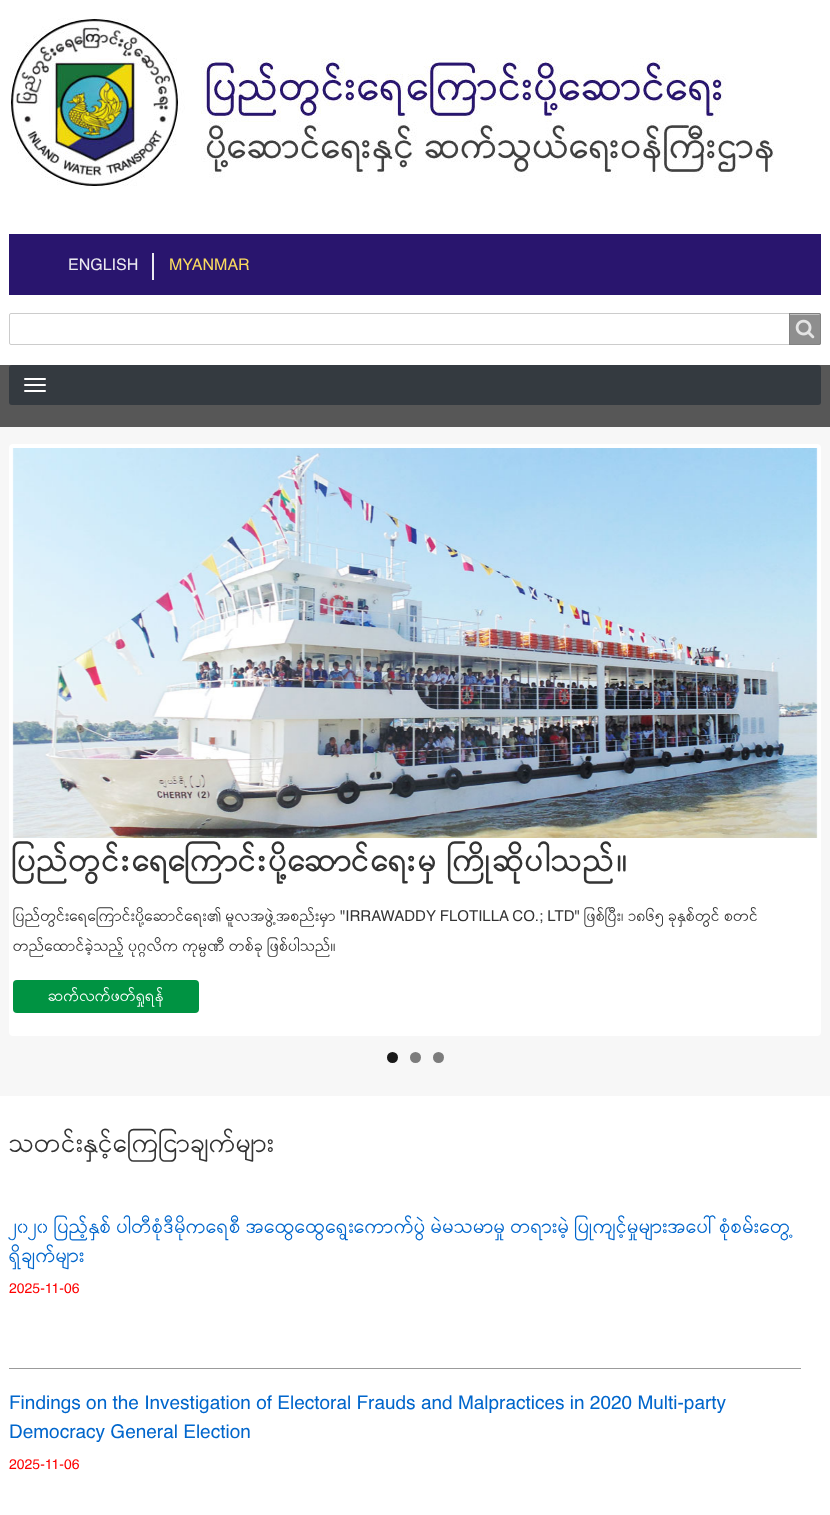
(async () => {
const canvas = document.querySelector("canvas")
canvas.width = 830
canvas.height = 1515
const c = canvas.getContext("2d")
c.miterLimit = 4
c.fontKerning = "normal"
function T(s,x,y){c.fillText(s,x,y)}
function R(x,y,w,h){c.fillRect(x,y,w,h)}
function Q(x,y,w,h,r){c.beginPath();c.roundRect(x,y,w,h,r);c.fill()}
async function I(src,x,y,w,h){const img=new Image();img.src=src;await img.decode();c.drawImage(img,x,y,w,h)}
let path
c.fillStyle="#f7f7f7"
R(0,0,830,1515)
c.fillStyle="#fff"
R(0,0,830,365)
await I("1.png",10,18,764,168)
c.fillStyle="#29156e"
R(9,234,812,61)
c.fillStyle="#ebeaf0"
R(152,253,2,27)
c.font="16px Helvetica"
T("ENGLISH",68,270)
c.fillStyle="#f9da5f"
T("MYANMAR",169,270)
c.beginPath()
c.roundRect(9.5,313.5,811,31,1.5)
c.strokeStyle="#ccc"
c.stroke()
c.fillStyle="#828282e6"
c.beginPath()
c.roundRect(789,313,32,32,[0,2,2,0])
c.fill()
await I("2.png",795,319,20,20)
c.fillStyle="#c1c1c1"
path = new Path2D("M790 315h30v1v-1c0-.5-.5-1-1-1h-29z")
c.fill(path)
c.beginPath()
c.roundRect(789.5,313.5,31,31,[0,1.5,1.5,0])
c.strokeStyle="#828282e6"
c.stroke()
c.fillStyle="#575757"
R(0,365,830,62)
c.fillStyle="#343a40"
Q(9,365,812,40,3)
c.fillStyle="#fff"
Q(24,378,22,2,1)
Q(24,384,22,2,1)
Q(24,390,22,2,1)
Q(9,444,812,592,4)
await I("3.png",12,448,806,390)
c.wordSpacing="1px"
c.font="35px 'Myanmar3'"
c.fillStyle="#333"
T("ပြည်တွင်းရေကြောင်းပို့ဆောင်ရေးမှ ကြိုဆိုပါသည်။",13,871)
c.wordSpacing="0px"
c.font="15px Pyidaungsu"
T("ပြည်တွင်းရေကြောင်းပို့ဆောင်ရေး၏ မူလအဖွဲ့အစည်းမှာ",13,921)
c.font="15px Helvetica"
T("\"IRRAWADDY FLOTILLA CO.; LTD\"",340,921)
c.font="15px Pyidaungsu"
T("ဖြစ်ပြီး၊ ၁၈၆၅ ခုနှစ်တွင် စတင်",584,921)
T("တည်ထောင်ခဲ့သည့် ပုဂ္ဂလိက ကုမ္ပဏီ တစ်ခု ဖြစ်ပါသည်။",13,951)
c.fillStyle="#009342"
Q(13,980,186,33,4)
c.fillStyle="#fff"
T("ဆက်လက်ဖတ်ရှုရန်",48,1001)
c.fillStyle="#191919"
c.beginPath()
c.arc(392.5,1057.5,5.5,0,7)
c.fill()
c.fillStyle="#7c7c7c"
c.beginPath()
c.arc(415.5,1057.5,5.5,0,7)
c.fill()
c.beginPath()
c.arc(438.5,1057.5,5.5,0,7)
c.fill()
c.fillStyle="#fff"
R(0,1096,830,419)
c.font="25.25px Pyidaungsu"
c.fillStyle="#333"
T("သတင်းနှင့်ကြေငြာချက်များ",9,1152)
c.fillStyle="#9b9b9b"
R(9,1368,792,1)
c.font="19px Pyidaungsu"
c.fillStyle="#06c"
T("၂၀၂၀ ပြည့်နှစ် ပါတီစုံဒီမိုကရေစီ အထွေထွေရွေးကောက်ပွဲ မဲမသမာမှု တရားမဲ့ ပြုကျင့်မှုများအပေါ် စုံစမ်းတွေ့",9,1233)
T("ရှိချက်များ",9,1262)
c.font="14px Helvetica"
c.fillStyle="#fe0000"
T("2025-11-06",9,1293)
c.font="19px Helvetica"
c.fillStyle="#06c"
T("Findings on the Investigation of Electoral Frauds and Malpractices in 2020 Multi-party",9,1409)
T("Democracy General Election",9,1438)
c.font="14px Helvetica"
c.fillStyle="#fe0000"
T("2025-11-06",9,1469)
})()
